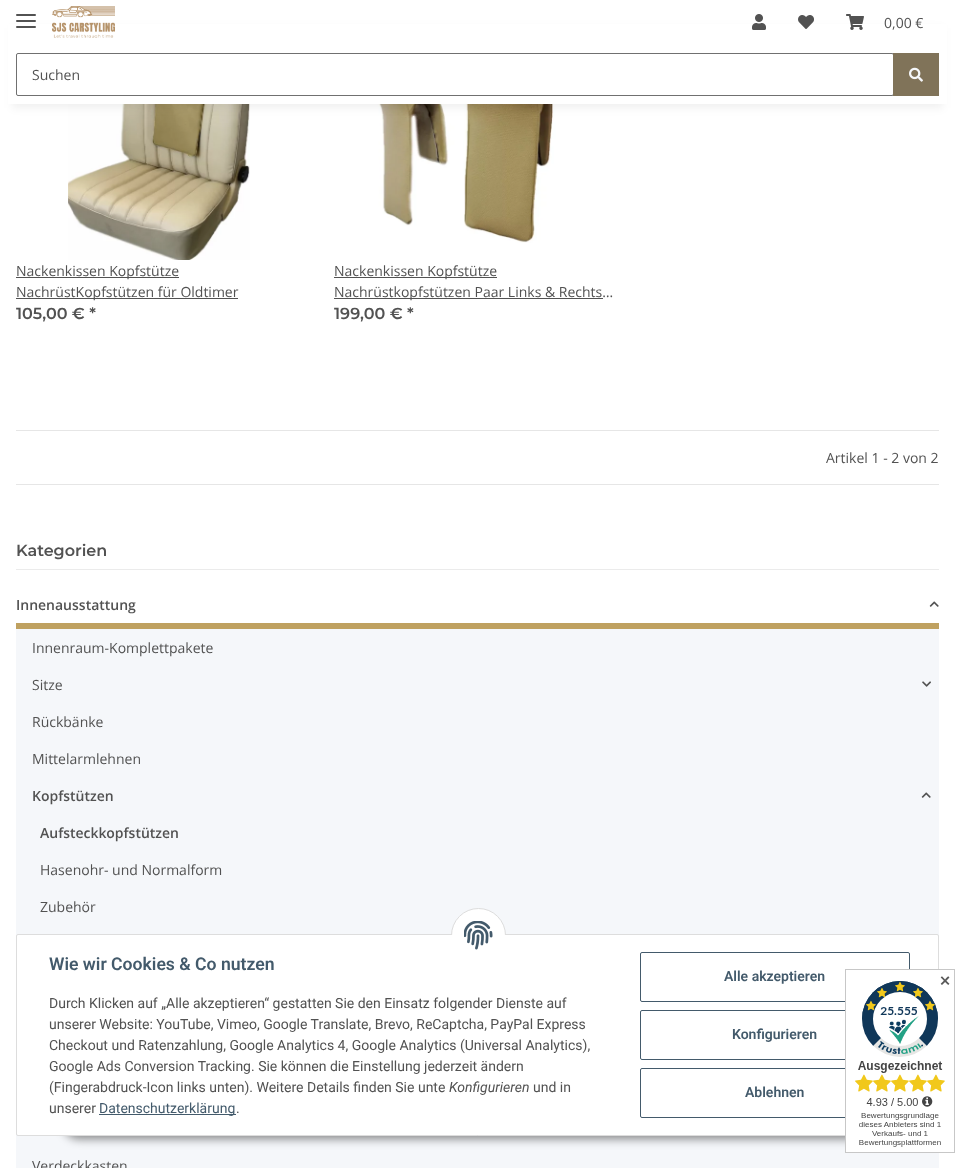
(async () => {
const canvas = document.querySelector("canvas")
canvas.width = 955
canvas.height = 1168
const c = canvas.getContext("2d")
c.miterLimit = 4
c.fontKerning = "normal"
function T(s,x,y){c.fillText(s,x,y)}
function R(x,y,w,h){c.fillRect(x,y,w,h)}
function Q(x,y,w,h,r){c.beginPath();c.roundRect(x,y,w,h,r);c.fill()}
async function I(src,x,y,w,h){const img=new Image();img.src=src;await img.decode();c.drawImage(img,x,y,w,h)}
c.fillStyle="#fff"
R(0,0,955,1168)
await I("6.png",68,104,183,156)
await I("7.png",366,104,191,139)
c.fillStyle="#0000000f"
c.filter="blur(4.5px)"
c.beginPath()
c.rect(12,28,931,80)
c.fill()
c.filter="none"
c.fillStyle="#fff"
R(8,24,939,80)
c.fillStyle="#525252"
Q(16,20,20,2,1)
Q(16,14,20,2,1)
Q(16,26,20,2,1)
await I("1.png",52,6,63,32)
await I("2.png",752,14,14,16)
await I("3.png",798,15,16,14)
await I("4.png",846,14,18,16)
c.font="14px Open Sans"
T("0,00 €",884,28)
c.beginPath()
c.roundRect(16.5,53.5,877,42,1.5)
c.strokeStyle="#707070"
c.stroke()
T("Suchen",32,80)
c.fillStyle="#807359"
R(893,53,46,43)
await I("5.png",909,67,14,15)
c.fillStyle="#525252"
R(16,277,163,1)
T("Nackenkissen Kopfstütze",16,276)
R(16,298,222,1)
T("NachrüstKopfstützen für Oldtimer",16,297)
c.font="600 16px Montserrat"
T("105,00 € *",16,319)
R(334,277,163,1)
c.font="14px Open Sans"
T("Nackenkissen Kopfstütze",334,276)
R(334,298,269,1)
T("Nachrüstkopfstützen Paar Links & Rechts…",334,297)
c.font="600 16px Montserrat"
T("199,00 € *",334,319)
c.fillStyle="#e6e6e6"
R(16,430,923,1)
c.font="14px Open Sans"
c.fillStyle="#525252"
T("Artikel 1 - 2 von 2",826,463)
c.fillStyle="#e6e6e6"
R(16,484,923,1)
c.fillStyle="#ebebeb"
R(16,569,923,1)
c.font="600 16px Montserrat"
c.fillStyle="#525252"
T("Kategorien",16,556)
c.fillStyle="#bfa160"
R(16,623,923,6)
c.font="600 14px Open Sans"
c.fillStyle="#525252"
T("Innenausstattung",16,610)
await I("8.png",929,601,10,6)
c.fillStyle="#f5f7fa"
R(16,629,923,539)
c.font="14px Open Sans"
c.fillStyle="#525252"
T("Innenraum-Komplettpakete",32,653)
T("Sitze",32,690)
await I("9.png",922,681,9,6)
T("Rückbänke",32,727)
T("Mittelarmlehnen",32,764)
c.font="600 14px Open Sans"
T("Kopfstützen",32,801)
await I("10.png",921,792,10,6)
T("Aufsteckkopfstützen",40,838)
c.font="14px Open Sans"
T("Hasenohr- und Normalform",40,875)
T("Zubehör",40,912)
T("Verdeckkasten",32,1171)
c.fillStyle="#00000073"
c.filter="blur(5px)"
c.beginPath()
c.roundRect(63,1107,829,32,16)
c.fill()
c.filter="none"
c.fillStyle="#fff"
c.beginPath()
c.roundRect(16.5,934.5,922,201,1.5)
c.fill()
c.strokeStyle="#ddd"
c.stroke()
c.beginPath()
c.arc(478.5,935.5,27,0,7)
c.fill()
c.stroke()
R(451,935,55,28)
await I("11.png",464,921,29,29)
c.font="600 17.6px Roboto"
c.fillStyle="#435a6b"
T("Wie wir Cookies & Co nutzen",49,970)
c.font="14px Roboto"
c.fillStyle="#525252"
T("Durch Klicken auf „Alle akzeptieren“ gestatten Sie den Einsatz folgender Dienste auf",49,1008)
T("unserer Website: YouTube, Vimeo, Google Translate, Brevo, ReCaptcha, PayPal Express",49,1029)
T("Checkout und Ratenzahlung, Google Analytics 4, Google Analytics (Universal Analytics),",49,1050)
T("Google Ads Conversion Tracking. Sie können die Einstellung jederzeit ändern",49,1071)
T("(Fingerabdruck-Icon links unten). Weitere Details finden Sie unte",49,1092)
c.font="italic 14px Roboto"
T("Konfigurieren",449,1092)
c.font="14px Roboto"
T("und in",533,1092)
T("unserer",49,1113)
c.fillStyle="#435a6b"
R(99,1114,137,1)
T("Datenschutzerklärung",99,1113)
c.fillStyle="#525252"
T(".",236,1113)
c.beginPath()
c.roundRect(640.5,952.5,269,49,1.5)
c.strokeStyle="#435a6b"
c.stroke()
c.font="600 14px Roboto"
c.fillStyle="#435a6b"
T("Alle akzeptieren",724,981)
c.beginPath()
c.roundRect(640.5,1010.5,269,49,1.5)
c.stroke()
T("Konfigurieren",732,1039)
c.beginPath()
c.roundRect(640.5,1068.5,269,49,1.5)
c.stroke()
T("Ablehnen",745,1097)
await I("12.png",845,969,110,184)
c.font="bold 14px DejaVu Sans"
c.fillStyle="#595959"
T("✕",939,986)
})()
